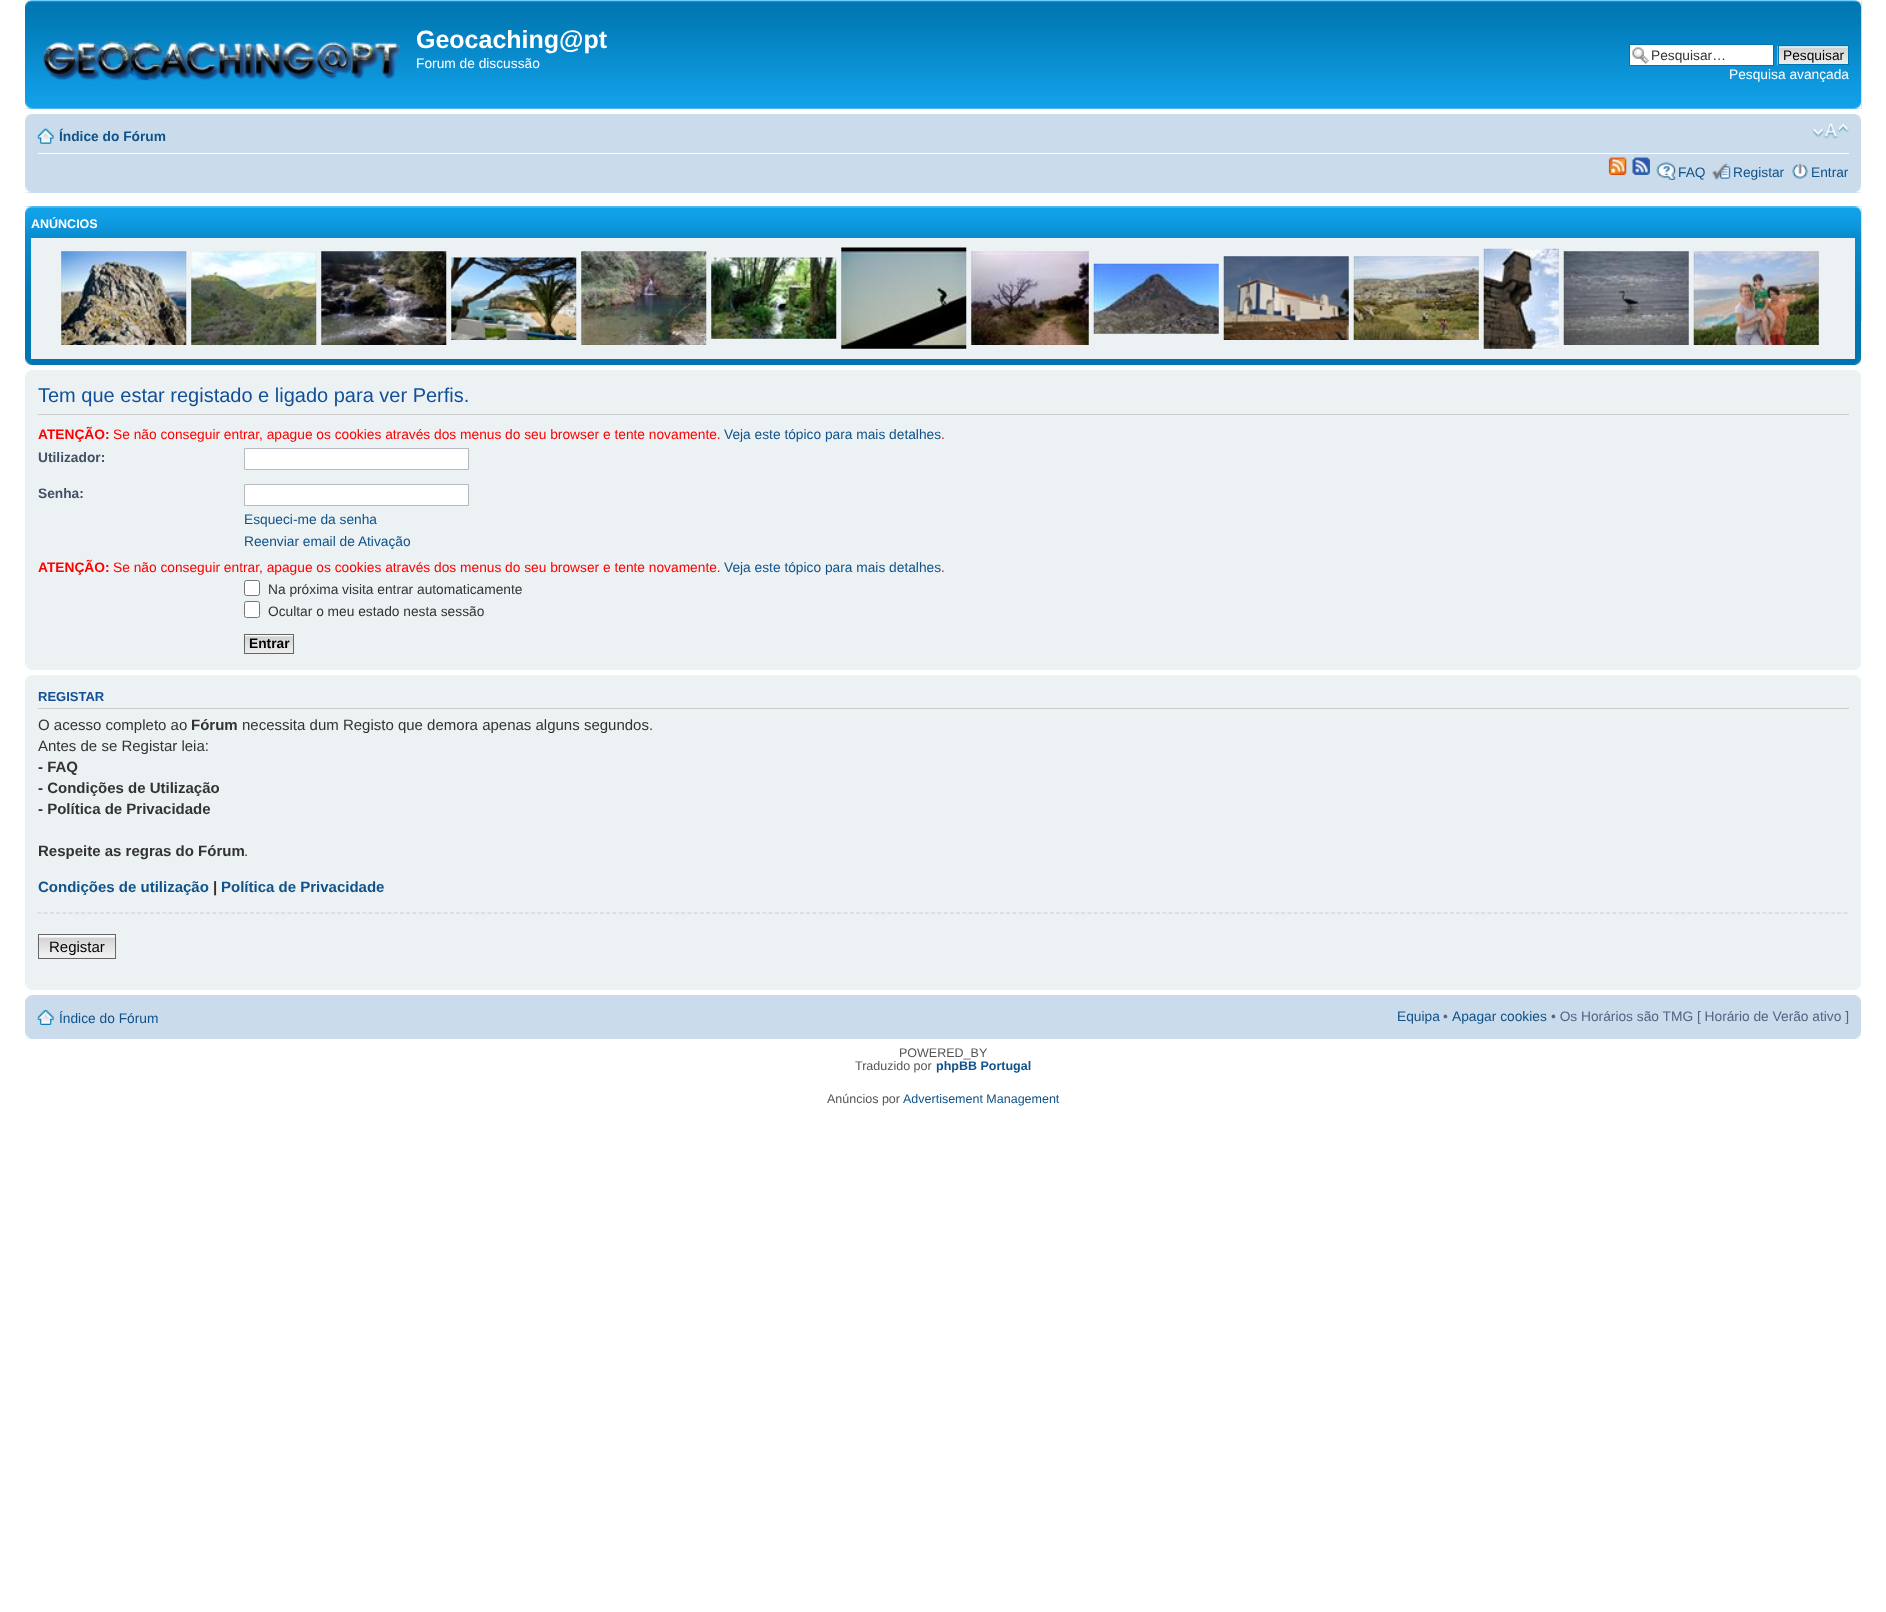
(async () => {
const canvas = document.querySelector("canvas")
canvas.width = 1886
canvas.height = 1612
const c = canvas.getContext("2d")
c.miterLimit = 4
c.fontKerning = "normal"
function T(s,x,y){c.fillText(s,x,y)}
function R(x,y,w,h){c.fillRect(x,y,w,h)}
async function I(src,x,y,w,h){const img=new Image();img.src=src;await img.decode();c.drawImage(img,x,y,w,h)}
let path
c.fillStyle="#fff"
R(0,0,1886,1612)
await I("1.png",25,0,1837,109)
await I("2.png",25,0,7,7)
await I("3.png",1854,0,8,7)
await I("4.png",43,39,357,42)
c.font="bold 25px Liberation Sans"
T("Geocaching@pt",416,48)
c.font="13.75px Liberation Sans"
T("Forum de discussão",416,68)
R(1630,45,143,20)
await I("5.png",1632,47,17,17)
c.strokeStyle="#0075b0"
c.strokeRect(1629.5,44.5,144,21)
c.fillStyle="#333"
T("Pesquisar…",1651,60)
await I("6.png",1777,46,71,19)
c.strokeRect(1778.5,45.5,70,19)
c.fillStyle="#000"
T("Pesquisar",1783,60)
c.fillStyle="#fff"
T("Pesquisa avançada",1729,79)
await I("7.png",25,102,7,7)
await I("8.png",1855,102,7,7)
c.fillStyle="#cadceb"
R(25,114,1836,79)
await I("9.png",25,114,7,6)
await I("10.png",1855,114,6,6)
c.fillStyle="#fff"
R(38,153,1811,1)
await I("11.png",37,128,17,16)
c.font="bold 13.75px Liberation Sans"
c.fillStyle="#105289"
T("Índice do Fórum",59,141)
await I("12.png",1812,123,37,16)
await I("13.png",1608,157,19,18)
await I("14.png",1632,157,18,18)
await I("15.png",1656,162,20,18)
c.font="13.75px Liberation Sans"
T("FAQ",1678,177)
await I("16.png",1712,163,19,17)
T("Registar",1733,177)
await I("17.png",1792,163,16,16)
T("Entrar",1811,177)
await I("18.png",25,186,6,7)
await I("19.png",1855,186,6,7)
c.fillStyle="#0076b1"
R(25,206,1836,159)
await I("20.png",25,206,1837,116)
await I("21.png",25,206,7,7)
await I("22.png",1854,206,8,7)
c.font="bold 12.5px Liberation Sans"
c.fillStyle="#fff"
T("ANÚNCIOS",31,228)
c.fillStyle="#ecf1f3"
R(31,238,1824,121)
await I("23.png",61,247,1758,102)
await I("24.png",25,358,7,7)
await I("25.png",1855,358,6,7)
R(25,370,1836,300)
await I("26.png",25,370,6,6)
await I("27.png",1855,370,6,6)
c.fillStyle="#ccc"
R(38,414,1811,1)
c.font="20px Liberation Sans"
c.fillStyle="#115098"
T("Tem que estar registado e ligado para ver Perfis.",38,402)
c.font="bold 13.75px Liberation Sans"
c.fillStyle="#f00"
T("ATENÇÃO:",38,439)
c.font="13.75px Liberation Sans"
T("Se não conseguir entrar, apague os cookies através dos menus do seu browser e tente novamente.",113,439)
c.fillStyle="#105289"
T("Veja este tópico para mais detalhes",724,439)
c.fillStyle="#f00"
T(".",941,439)
c.font="bold 13.75px Liberation Sans"
c.fillStyle="#425067"
T("Utilizador:",38,462)
c.fillStyle="#fff"
c.beginPath()
c.rect(244.5,448.5,224,21)
c.fill()
c.strokeStyle="#b4bac0"
c.stroke()
c.fillStyle="#425067"
T("Senha:",38,498)
c.fillStyle="#fff"
c.beginPath()
c.rect(244.5,484.5,224,21)
c.fill()
c.stroke()
c.font="13.75px Liberation Sans"
c.fillStyle="#105289"
T("Esqueci-me da senha",244,524)
T("Reenviar email de Ativação",244,546)
c.font="bold 13.75px Liberation Sans"
c.fillStyle="#f00"
T("ATENÇÃO:",38,572)
c.font="13.75px Liberation Sans"
T("Se não conseguir entrar, apague os cookies através dos menus do seu browser e tente novamente.",113,572)
c.fillStyle="#105289"
T("Veja este tópico para mais detalhes",724,572)
c.fillStyle="#f00"
T(".",941,572)
c.fillStyle="#fff"
c.beginPath()
c.roundRect(244.5,580.5,15,15,2)
c.fill()
c.strokeStyle="#767676"
c.stroke()
c.fillStyle="#333"
T("Na próxima visita entrar automaticamente",268,594)
c.fillStyle="#fff"
c.beginPath()
c.roundRect(244.5,601.5,15,16,2)
c.fill()
c.stroke()
c.fillStyle="#333"
T("Ocultar o meu estado nesta sessão",268,616)
await I("28.png",243,635,50,19)
c.strokeStyle="#666"
c.strokeRect(244.5,634.5,49,19)
c.font="bold 13.75px Liberation Sans"
c.fillStyle="#000"
T("Entrar",249,648)
await I("29.png",25,664,6,6)
await I("30.png",1856,664,5,6)
c.fillStyle="#ecf1f3"
R(25,675,1836,315)
await I("26.png",25,675,6,6)
await I("27.png",1855,675,6,6)
c.fillStyle="#ccc"
R(38,708,1811,1)
c.font="bold 13px Liberation Sans"
c.fillStyle="#115098"
T("REGISTAR",38,701)
c.font="15px Liberation Sans"
c.fillStyle="#333"
T("O acesso completo ao",38,730)
c.font="bold 15px Liberation Sans"
T("Fórum",191,730)
c.font="15px Liberation Sans"
T("necessita dum Registo que demora apenas alguns segundos.",242,730)
T("Antes de se Registar leia:",38,751)
c.font="bold 15px Liberation Sans"
T("- FAQ",38,772)
T("- Condições de Utilização",38,793)
T("- Política de Privacidade",38,814)
T("Respeite as regras do Fórum",38,856)
c.font="15px Liberation Sans"
T(".",244,856)
c.font="bold 15px Liberation Sans"
c.fillStyle="#105289"
T("Condições de utilização",38,892)
c.fillStyle="#333"
T("|",213,892)
c.fillStyle="#105289"
T("Política de Privacidade",221,892)
path = new Path2D("M37.5 913h1811.5")
c.strokeStyle="#ccc"
c.lineWidth=1.2
c.setLineDash([3.75,2.5])
c.stroke(path)
await I("31.png",37,937,80,22)
c.fillStyle="#fafafa"
R(39,935,76,2)
c.strokeStyle="#666"
c.lineWidth=1
c.setLineDash([])
c.strokeRect(38.5,934.5,77,24)
c.font="15px Liberation Sans"
c.fillStyle="#000"
T("Registar",49,952)
await I("29.png",25,984,6,6)
await I("30.png",1856,984,5,6)
c.fillStyle="#cadceb"
R(25,995,1836,44)
await I("32.png",25,995,7,6)
await I("33.png",1855,995,6,6)
await I("34.png",37,1010,17,15)
c.font="13.75px Liberation Sans"
c.fillStyle="#105289"
T("Índice do Fórum",59,1023)
T("Equipa",1397,1021)
c.fillStyle="#536482"
T("•",1443,1021)
c.fillStyle="#105289"
T("Apagar cookies",1452,1021)
c.fillStyle="#536482"
T("• Os Horários são TMG [ Horário de Verão ativo ]",1551,1021)
await I("35.png",25,1032,6,7)
await I("36.png",1855,1032,6,7)
c.font="12.5px Liberation Sans"
c.fillStyle="#555"
T("POWERED_BY",899,1057)
T("Traduzido por",855,1070)
c.font="bold 12.5px Liberation Sans"
c.fillStyle="#105289"
T("phpBB Portugal",936,1070)
c.font="12.5px Liberation Sans"
c.fillStyle="#555"
T("Anúncios por",827,1103)
c.fillStyle="#105289"
T("Advertisement Management",903,1103)
})()
